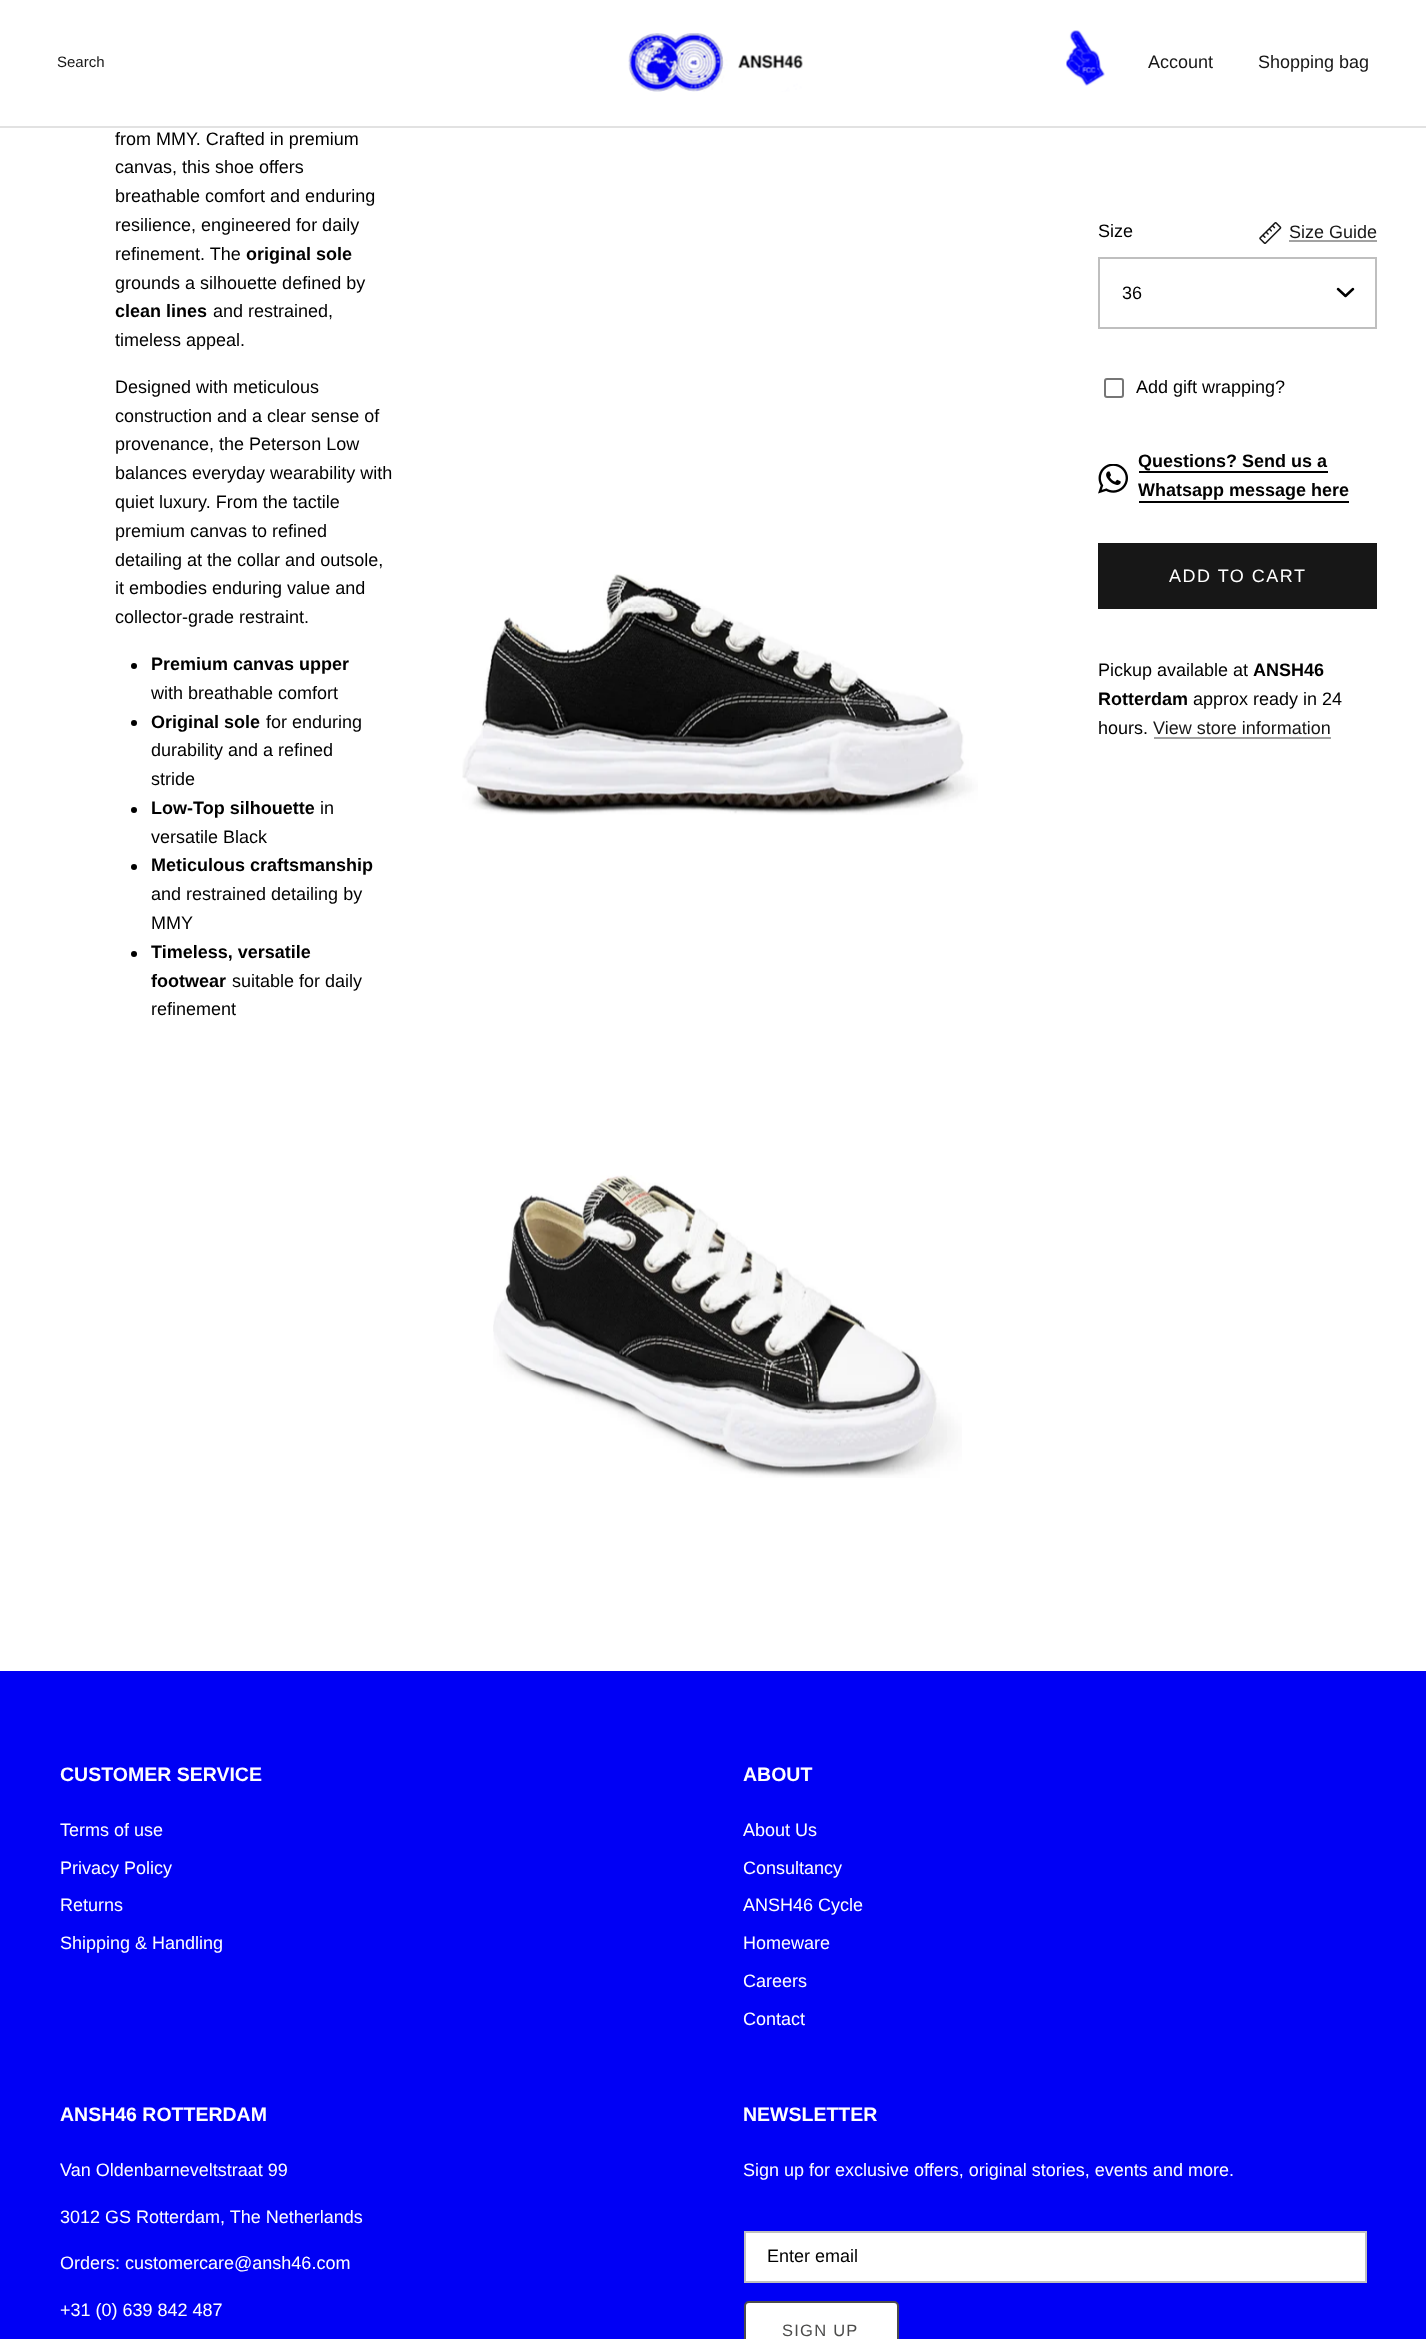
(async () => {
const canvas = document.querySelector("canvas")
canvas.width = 1426
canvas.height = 2339
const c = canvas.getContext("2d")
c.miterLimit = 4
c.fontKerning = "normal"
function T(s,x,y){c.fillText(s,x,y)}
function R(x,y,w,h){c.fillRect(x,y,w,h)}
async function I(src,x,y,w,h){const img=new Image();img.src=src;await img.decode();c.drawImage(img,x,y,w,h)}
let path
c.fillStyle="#fff"
R(0,0,1426,2339)
c.font="15px Liberation Sans"
c.fillStyle="#171717"
T("Search",57,67)
await I("1.png",628,33,175,59)
await I("2.png",1066,30,39,56)
c.font="18px Liberation Sans"
T("Account",1148,68)
T("Shopping bag",1258,68)
c.fillStyle="#e2e2e2"
R(0,126,1426,2)
c.fillStyle="#000"
T("from MMY. Crafted in premium",115,145)
T("canvas, this shoe offers",115,173)
T("breathable comfort and enduring",115,202)
T("resilience, engineered for daily",115,231)
T("refinement. The",115,260)
c.font="bold 18px Liberation Sans"
T("original sole",246,260)
c.font="18px Liberation Sans"
T("grounds a silhouette defined by",115,289)
c.font="bold 18px Liberation Sans"
T("clean lines",115,317)
c.font="18px Liberation Sans"
T("and restrained,",213,317)
T("timeless appeal.",115,346)
T("Designed with meticulous",115,393)
T("construction and a clear sense of",115,422)
T("provenance, the Peterson Low",115,450)
T("balances everyday wearability with",115,479)
T("quiet luxury. From the tactile",115,508)
T("premium canvas to refined",115,537)
T("detailing at the collar and outsole,",115,566)
T("it embodies enduring value and",115,594)
T("collector-grade restraint.",115,623)
c.beginPath()
c.arc(134,666,3,0,7)
c.fill()
c.font="bold 18px Liberation Sans"
T("Premium canvas upper",151,670)
c.font="18px Liberation Sans"
T("with breathable comfort",151,699)
c.beginPath()
c.arc(134,723,3,0,7)
c.fill()
c.font="bold 18px Liberation Sans"
T("Original sole",151,728)
c.font="18px Liberation Sans"
T("for enduring",266,728)
T("durability and a refined",151,756)
T("stride",151,785)
c.beginPath()
c.arc(134,810,3,0,7)
c.fill()
c.font="bold 18px Liberation Sans"
T("Low-Top silhouette",151,814)
c.font="18px Liberation Sans"
T("in",320,814)
T("versatile Black",151,843)
c.beginPath()
c.arc(134,867,3,0,7)
c.fill()
c.font="bold 18px Liberation Sans"
T("Meticulous craftsmanship",151,871)
c.font="18px Liberation Sans"
T("and restrained detailing by",151,900)
T("MMY",151,929)
c.beginPath()
c.arc(134,954,3,0,7)
c.fill()
c.font="bold 18px Liberation Sans"
T("Timeless, versatile",151,958)
T("footwear",151,987)
c.font="18px Liberation Sans"
T("suitable for daily",232,987)
T("refinement",151,1015)
T("Size",1098,237)
await I("3.png",1259,222,23,22)
c.fillStyle="#171717"
T("Size Guide",1289,238)
c.fillStyle="#a2a2a2"
R(1289,240,88,2)
c.strokeStyle="#bfbfbf"
c.lineWidth=2
c.strokeRect(1099,258,277,70)
c.fillStyle="#000"
T("36",1122,299)
path = new Path2D("M1338 289l7.5 7l7.5-7")
c.strokeStyle="#000"
c.lineWidth=2.5
c.lineCap="round"
c.lineJoin="round"
c.stroke(path)
c.beginPath()
c.roundRect(1105,379,18,18,2)
c.strokeStyle="#767676"
c.lineWidth=2
c.lineJoin="miter"
c.stroke()
T("Add gift wrapping?",1136,393)
await I("4.png",1098,464,30,30)
c.font="bold 18px Liberation Sans"
T("Questions? Send us a",1138,467)
R(1139,471,189,2)
T("Whatsapp message here",1138,496)
R(1139,501,210,2)
c.fillStyle="#171717"
R(1098,543,279,66)
c.letterSpacing="1.5px"
c.font="18px Liberation Sans"
c.fillStyle="#fff"
T("ADD TO CART",1169,582)
c.letterSpacing="0px"
c.fillStyle="#000"
T("Pickup available at",1098,676)
c.font="bold 18px Liberation Sans"
T("ANSH46",1253,676)
T("Rotterdam",1098,705)
c.font="18px Liberation Sans"
T("approx ready in 24",1193,705)
T("hours.",1098,734)
c.fillStyle="#171717"
T("View store information",1153,734)
c.fillStyle="#a2a2a2"
R(1154,737,177,2)
await I("5.png",462,574,516,241)
await I("6.png",493,1175,469,303)
c.fillStyle="#0000f5"
R(0,1671,1426,668)
c.font="bold 19.5px Liberation Sans"
c.fillStyle="#fff"
T("CUSTOMER SERVICE",60,1781)
c.font="18px Liberation Sans"
T("Terms of use",60,1836)
T("Privacy Policy",60,1874)
T("Returns",60,1911)
T("Shipping & Handling",60,1949)
c.font="bold 19.5px Liberation Sans"
T("ABOUT",743,1781)
c.font="18px Liberation Sans"
T("About Us",743,1836)
T("Consultancy",743,1874)
T("ANSH46 Cycle",743,1911)
T("Homeware",743,1949)
T("Careers",743,1987)
T("Contact",743,2025)
c.font="bold 19.5px Liberation Sans"
T("ANSH46 ROTTERDAM",60,2121)
c.font="18px Liberation Sans"
T("Van Oldenbarneveltstraat 99",60,2176)
T("3012 GS Rotterdam, The Netherlands",60,2223)
T("Orders: customercare@ansh46.com",60,2269)
T("+31 (0) 639 842 487",60,2316)
c.font="bold 19.5px Liberation Sans"
T("NEWSLETTER",743,2121)
c.font="18px Liberation Sans"
T("Sign up for exclusive offers, original stories, events and more.",743,2176)
c.beginPath()
c.rect(745,2232,621,50)
c.fill()
c.strokeStyle="#bfbfbf"
c.stroke()
c.fillStyle="#000"
T("Enter email",767,2262)
c.fillStyle="#fff"
c.beginPath()
c.roundRect(745,2302,153,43,4)
c.fill()
c.strokeStyle="#4c4c4b"
c.stroke()
c.letterSpacing="1.25px"
c.font="16.5px Liberation Sans"
c.fillStyle="#4c4c4b"
T("SIGN UP",782,2336)
})()
